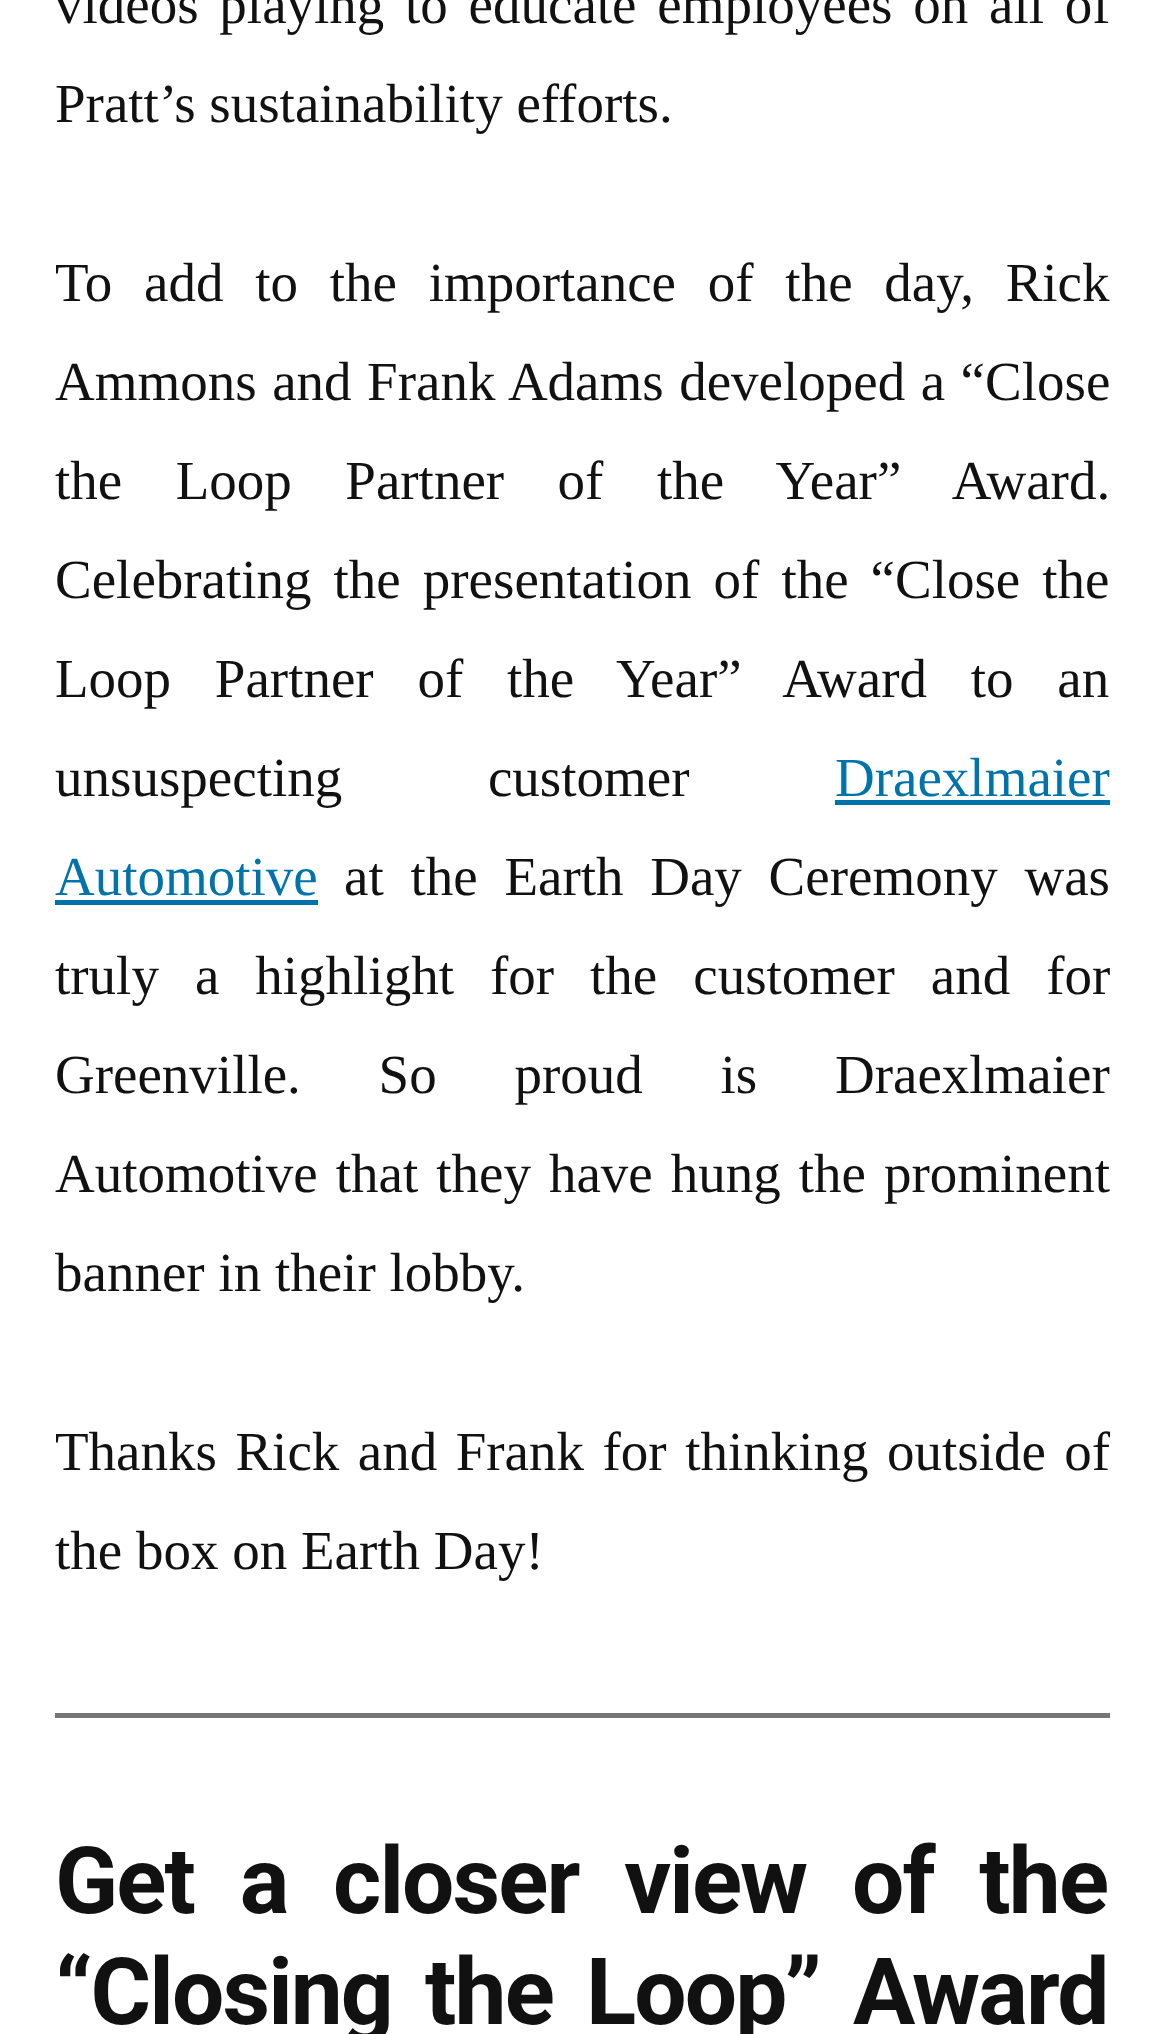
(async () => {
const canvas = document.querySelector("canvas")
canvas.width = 1163
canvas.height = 2034
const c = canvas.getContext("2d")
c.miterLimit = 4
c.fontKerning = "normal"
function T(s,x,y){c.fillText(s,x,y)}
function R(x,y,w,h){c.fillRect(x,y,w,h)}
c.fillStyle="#fff"
R(0,0,1163,2034)
c.wordSpacing="7px"
c.font="55px Liberation Serif"
c.fillStyle="#111"
T("videos playing to educate employees on all of",55,23)
c.wordSpacing="0px"
T("Pratt’s sustainability efforts.",55,122)
c.wordSpacing="18px"
T("To add to the importance of the day, Rick",55,301)
c.wordSpacing="1.75px"
T("Ammons and Frank Adams developed a “Close",55,400)
c.wordSpacing="39.75px"
T("the Loop Partner of the Year” Award.",55,499)
c.wordSpacing="8.25px"
T("Celebrating the presentation of the “Close the",55,598)
c.wordSpacing="30px"
T("Loop Partner of the Year” Award to an",55,697)
c.wordSpacing="132px"
T("unsuspecting customer",55,796)
c.wordSpacing="0px"
c.fillStyle="#0073aa"
T("Draexlmaier",835,796)
R(835,800,275,5)
T("Automotive",55,895)
R(55,900,263,5)
c.wordSpacing="13px"
c.fillStyle="#111"
T("at the Earth Day Ceremony was",344,895)
c.wordSpacing="22.25px"
T("truly a highlight for the customer and for",55,994)
c.wordSpacing="64px"
T("Greenville. So proud is Draexlmaier",55,1093)
c.wordSpacing="4.25px"
T("Automotive that they have hung the prominent",55,1192)
c.wordSpacing="0px"
T("banner in their lobby.",55,1291)
c.wordSpacing="4.75px"
T("Thanks Rick and Frank for thinking outside of",55,1470)
c.wordSpacing="0px"
T("the box on Earth Day!",55,1569)
c.fillStyle="#767676"
R(55,1713,1055,5)
c.letterSpacing="-1.9px"
c.wordSpacing="24.5px"
c.font="bold 92.75px Roboto"
c.fillStyle="#111"
T("Get a closer view of the",55,1913)
c.wordSpacing="12px"
T("“Closing the Loop” Award",55,2024)
})()
